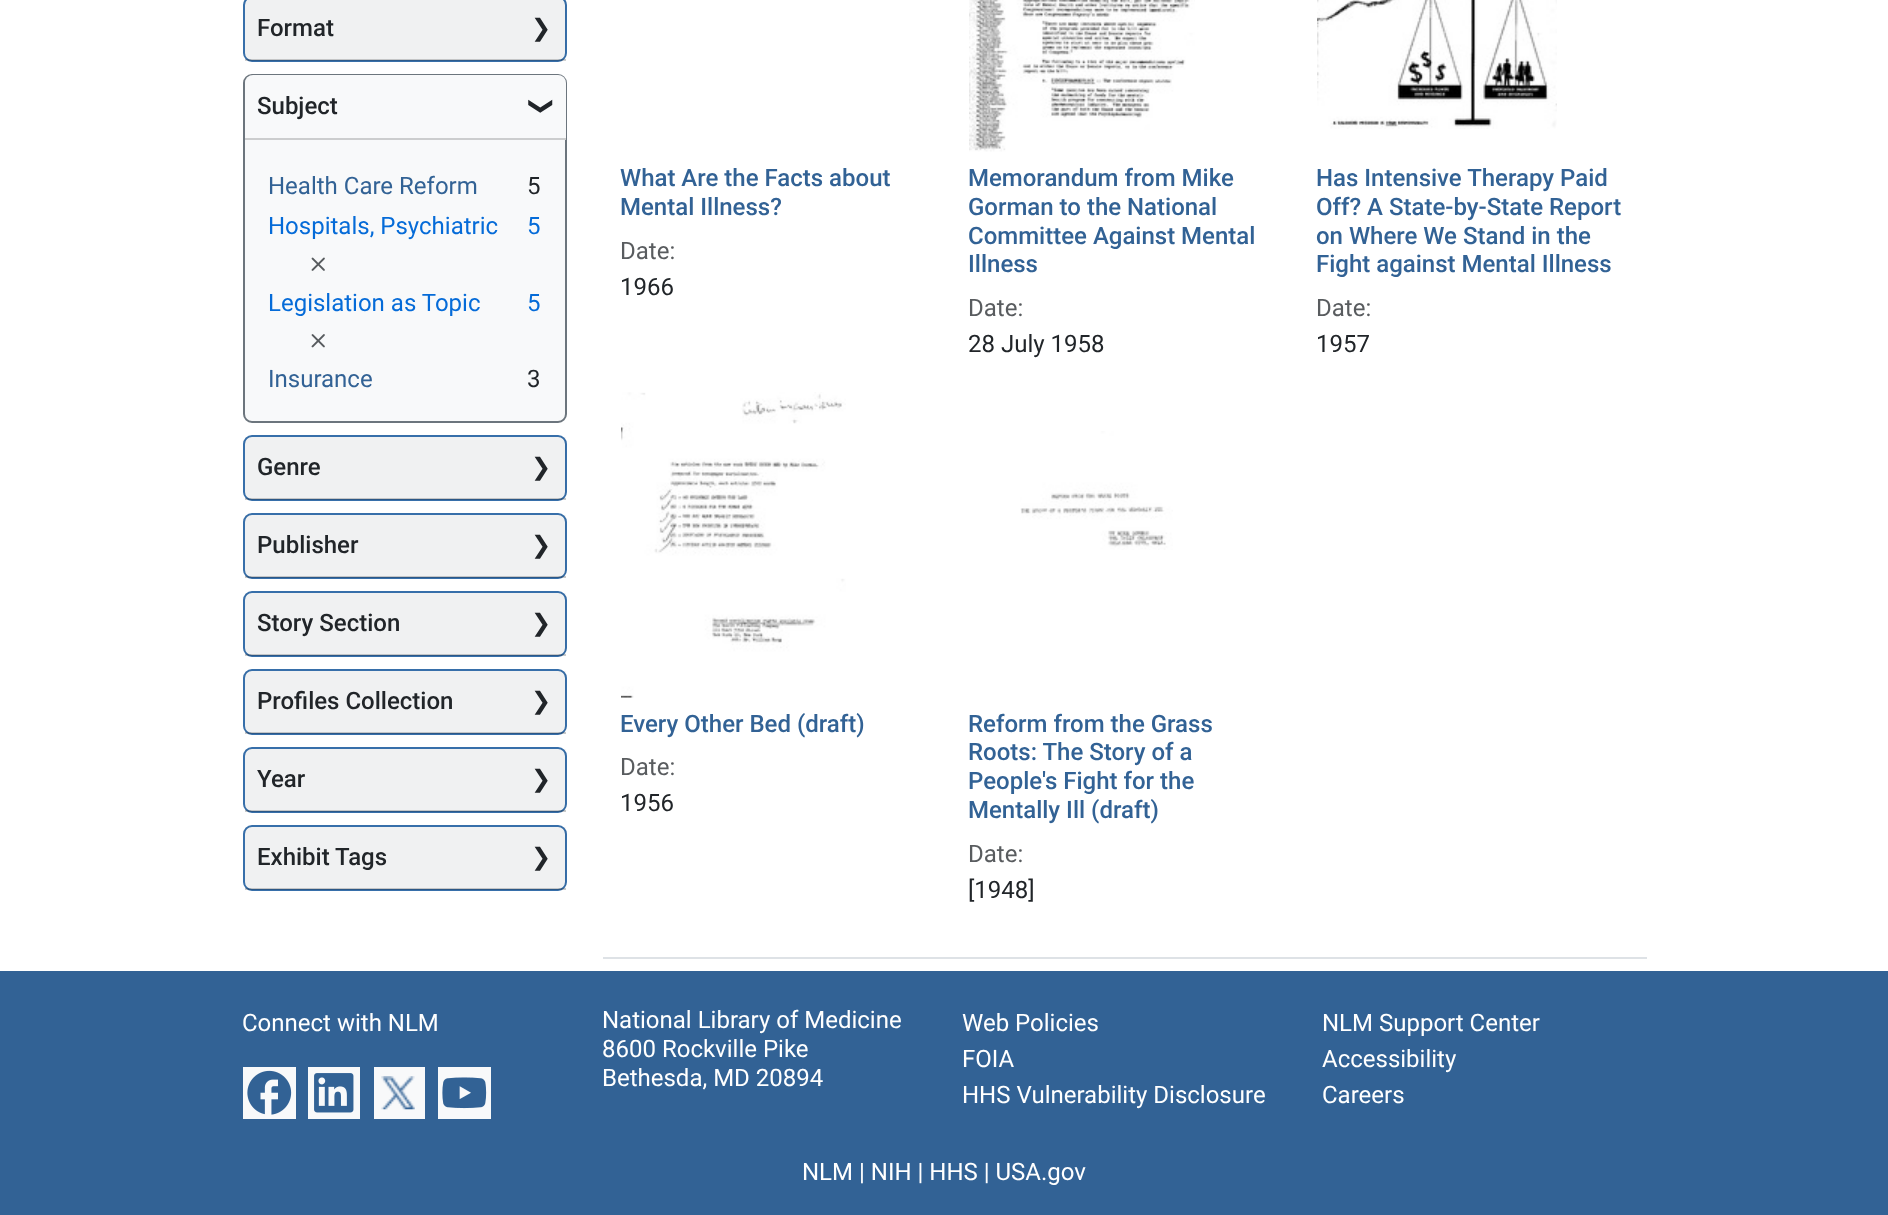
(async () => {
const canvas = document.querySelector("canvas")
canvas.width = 1888
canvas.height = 1215
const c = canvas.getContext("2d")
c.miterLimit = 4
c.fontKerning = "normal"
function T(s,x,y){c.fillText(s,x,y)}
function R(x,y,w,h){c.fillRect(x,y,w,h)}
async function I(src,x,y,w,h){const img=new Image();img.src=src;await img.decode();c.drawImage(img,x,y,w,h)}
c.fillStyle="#fff"
R(0,0,1888,1215)
c.fillStyle="#f8f9fa"
c.beginPath()
c.roundRect(244,-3,322,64,8)
c.fill()
c.strokeStyle="#376faa"
c.lineWidth=2
c.stroke()
c.fillStyle="#00000008"
R(245,0,321,60)
c.fillStyle="#0000002e"
R(245,59,321,2)
c.font="500 24px Roboto"
c.fillStyle="#212529"
T("Format",257,36)
c.font="24px DejaVu Sans"
T("❯",531,36)
c.fillStyle="#f8f9fa"
c.beginPath()
c.roundRect(244,75,322,347,8)
c.fill()
c.strokeStyle="#6c757d"
c.stroke()
c.beginPath()
c.roundRect(245,75,321,65,[8,8,0,0])
c.fill()
c.fillStyle="#cccdce"
R(245,138,321,2)
c.font="500 24px Roboto"
c.fillStyle="#212529"
T("Subject",257,114)
c.font="24px DejaVu Sans"
c.save()
c.translate(534,96)
c.rotate(90 * Math.PI / 180)
c.fillText("❯",0,0)
c.restore()
c.font="24px Roboto"
c.fillStyle="#326295"
T("Health Care Reform",268,194)
c.fillStyle="#212529"
T("5",527,194)
c.fillStyle="#056bd8"
T("Hospitals, Psychiatric",268,234)
await I("1.png",311,257,14,14)
T("5",527,234)
T("Legislation as Topic",268,311)
await I("2.png",311,334,14,14)
T("5",527,311)
c.fillStyle="#326295"
T("Insurance",268,387)
c.fillStyle="#212529"
T("3",527,387)
c.fillStyle="#f8f9fa"
c.beginPath()
c.roundRect(244,436,322,64,8)
c.fill()
c.strokeStyle="#376faa"
c.stroke()
c.fillStyle="#00000008"
R(245,437,321,63)
c.fillStyle="#0000002e"
R(245,498,321,2)
c.font="500 24px Roboto"
c.fillStyle="#212529"
T("Genre",257,475)
c.font="24px DejaVu Sans"
T("❯",531,475)
c.fillStyle="#f8f9fa"
c.beginPath()
c.roundRect(244,514,322,64,8)
c.fill()
c.stroke()
c.fillStyle="#00000008"
R(245,515,321,63)
c.fillStyle="#0000002e"
R(245,576,321,2)
c.font="500 24px Roboto"
c.fillStyle="#212529"
T("Publisher",257,553)
c.font="24px DejaVu Sans"
T("❯",531,553)
c.fillStyle="#f8f9fa"
c.beginPath()
c.roundRect(244,592,322,64,8)
c.fill()
c.stroke()
c.fillStyle="#00000008"
R(245,593,321,63)
c.fillStyle="#0000002e"
R(245,654,321,2)
c.font="500 24px Roboto"
c.fillStyle="#212529"
T("Story Section",257,631)
c.font="24px DejaVu Sans"
T("❯",531,631)
c.fillStyle="#f8f9fa"
c.beginPath()
c.roundRect(244,670,322,64,8)
c.fill()
c.stroke()
c.fillStyle="#00000008"
R(245,671,321,63)
c.fillStyle="#0000002e"
R(245,732,321,2)
c.font="500 24px Roboto"
c.fillStyle="#212529"
T("Profiles Collection",257,709)
c.font="24px DejaVu Sans"
T("❯",531,709)
c.fillStyle="#f8f9fa"
c.beginPath()
c.roundRect(244,748,322,64,8)
c.fill()
c.stroke()
c.fillStyle="#00000008"
R(245,749,321,63)
c.fillStyle="#0000002e"
R(245,810,321,2)
c.font="500 24px Roboto"
c.fillStyle="#212529"
T("Year",257,787)
c.font="24px DejaVu Sans"
T("❯",531,787)
c.fillStyle="#f8f9fa"
c.beginPath()
c.roundRect(244,826,322,64,8)
c.fill()
c.stroke()
c.fillStyle="#00000008"
R(245,827,321,63)
c.fillStyle="#0000002e"
R(245,888,321,2)
c.font="500 24px Roboto"
c.fillStyle="#212529"
T("Exhibit Tags",257,865)
c.font="24px DejaVu Sans"
T("❯",531,865)
c.fillStyle="#dee2e6"
R(603,957,1044,2)
c.font="500 24px Roboto"
c.fillStyle="#326295"
T("What Are the Facts about",620,186)
T("Mental Illness?",620,215)
c.font="24px Roboto"
c.fillStyle="#595c5f"
T("Date:",620,259)
c.fillStyle="#212529"
T("1966",620,295)
await I("3.png",969,0,226,152)
c.font="500 24px Roboto"
c.fillStyle="#326295"
T("Memorandum from Mike",968,186)
T("Gorman to the National",968,215)
T("Committee Against Mental",968,244)
T("Illness",968,272)
c.font="24px Roboto"
c.fillStyle="#595c5f"
T("Date:",968,316)
c.fillStyle="#212529"
T("28 July 1958",968,352)
await I("4.png",1317,0,240,129)
c.font="500 24px Roboto"
c.fillStyle="#326295"
T("Has Intensive Therapy Paid",1316,186)
T("Off? A State-by-State Report",1316,215)
T("on Where We Stand in the",1316,244)
T("Fight against Mental Illness",1316,272)
c.font="24px Roboto"
c.fillStyle="#595c5f"
T("Date:",1316,316)
c.fillStyle="#212529"
T("1957",1316,352)
await I("5.png",621,392,225,306)
c.font="500 24px Roboto"
c.fillStyle="#326295"
T("Every Other Bed (draft)",620,732)
c.font="24px Roboto"
c.fillStyle="#595c5f"
T("Date:",620,775)
c.fillStyle="#212529"
T("1956",620,811)
await I("6.png",1020,431,153,119)
c.font="500 24px Roboto"
c.fillStyle="#326295"
T("Reform from the Grass",968,732)
T("Roots: The Story of a",968,760)
T("People's Fight for the",968,789)
T("Mentally Ill (draft)",968,818)
c.font="24px Roboto"
c.fillStyle="#595c5f"
T("Date:",968,862)
c.fillStyle="#212529"
T("[1948]",968,898)
c.fillStyle="#326295"
R(0,971,1888,244)
c.fillStyle="#fff"
T("Connect with NLM",242,1031)
c.fillStyle="#f8f9fa"
R(243,1067,53,52)
await I("7.png",247,1070,45,45)
R(308,1067,52,52)
await I("8.png",314,1073,40,40)
R(374,1067,51,52)
await I("9.png",381,1076,34,34)
R(438,1067,53,52)
await I("10.png",442,1077,45,32)
c.fillStyle="#fff"
T("National Library of Medicine",602,1028)
T("8600 Rockville Pike",602,1057)
T("Bethesda, MD 20894",602,1086)
T("Web Policies",962,1031)
T("FOIA",962,1067)
T("HHS Vulnerability Disclosure",962,1103)
T("NLM Support Center",1322,1031)
T("Accessibility",1322,1067)
T("Careers",1322,1103)
T("NLM | NIH | HHS | USA.gov",802,1180)
})()
